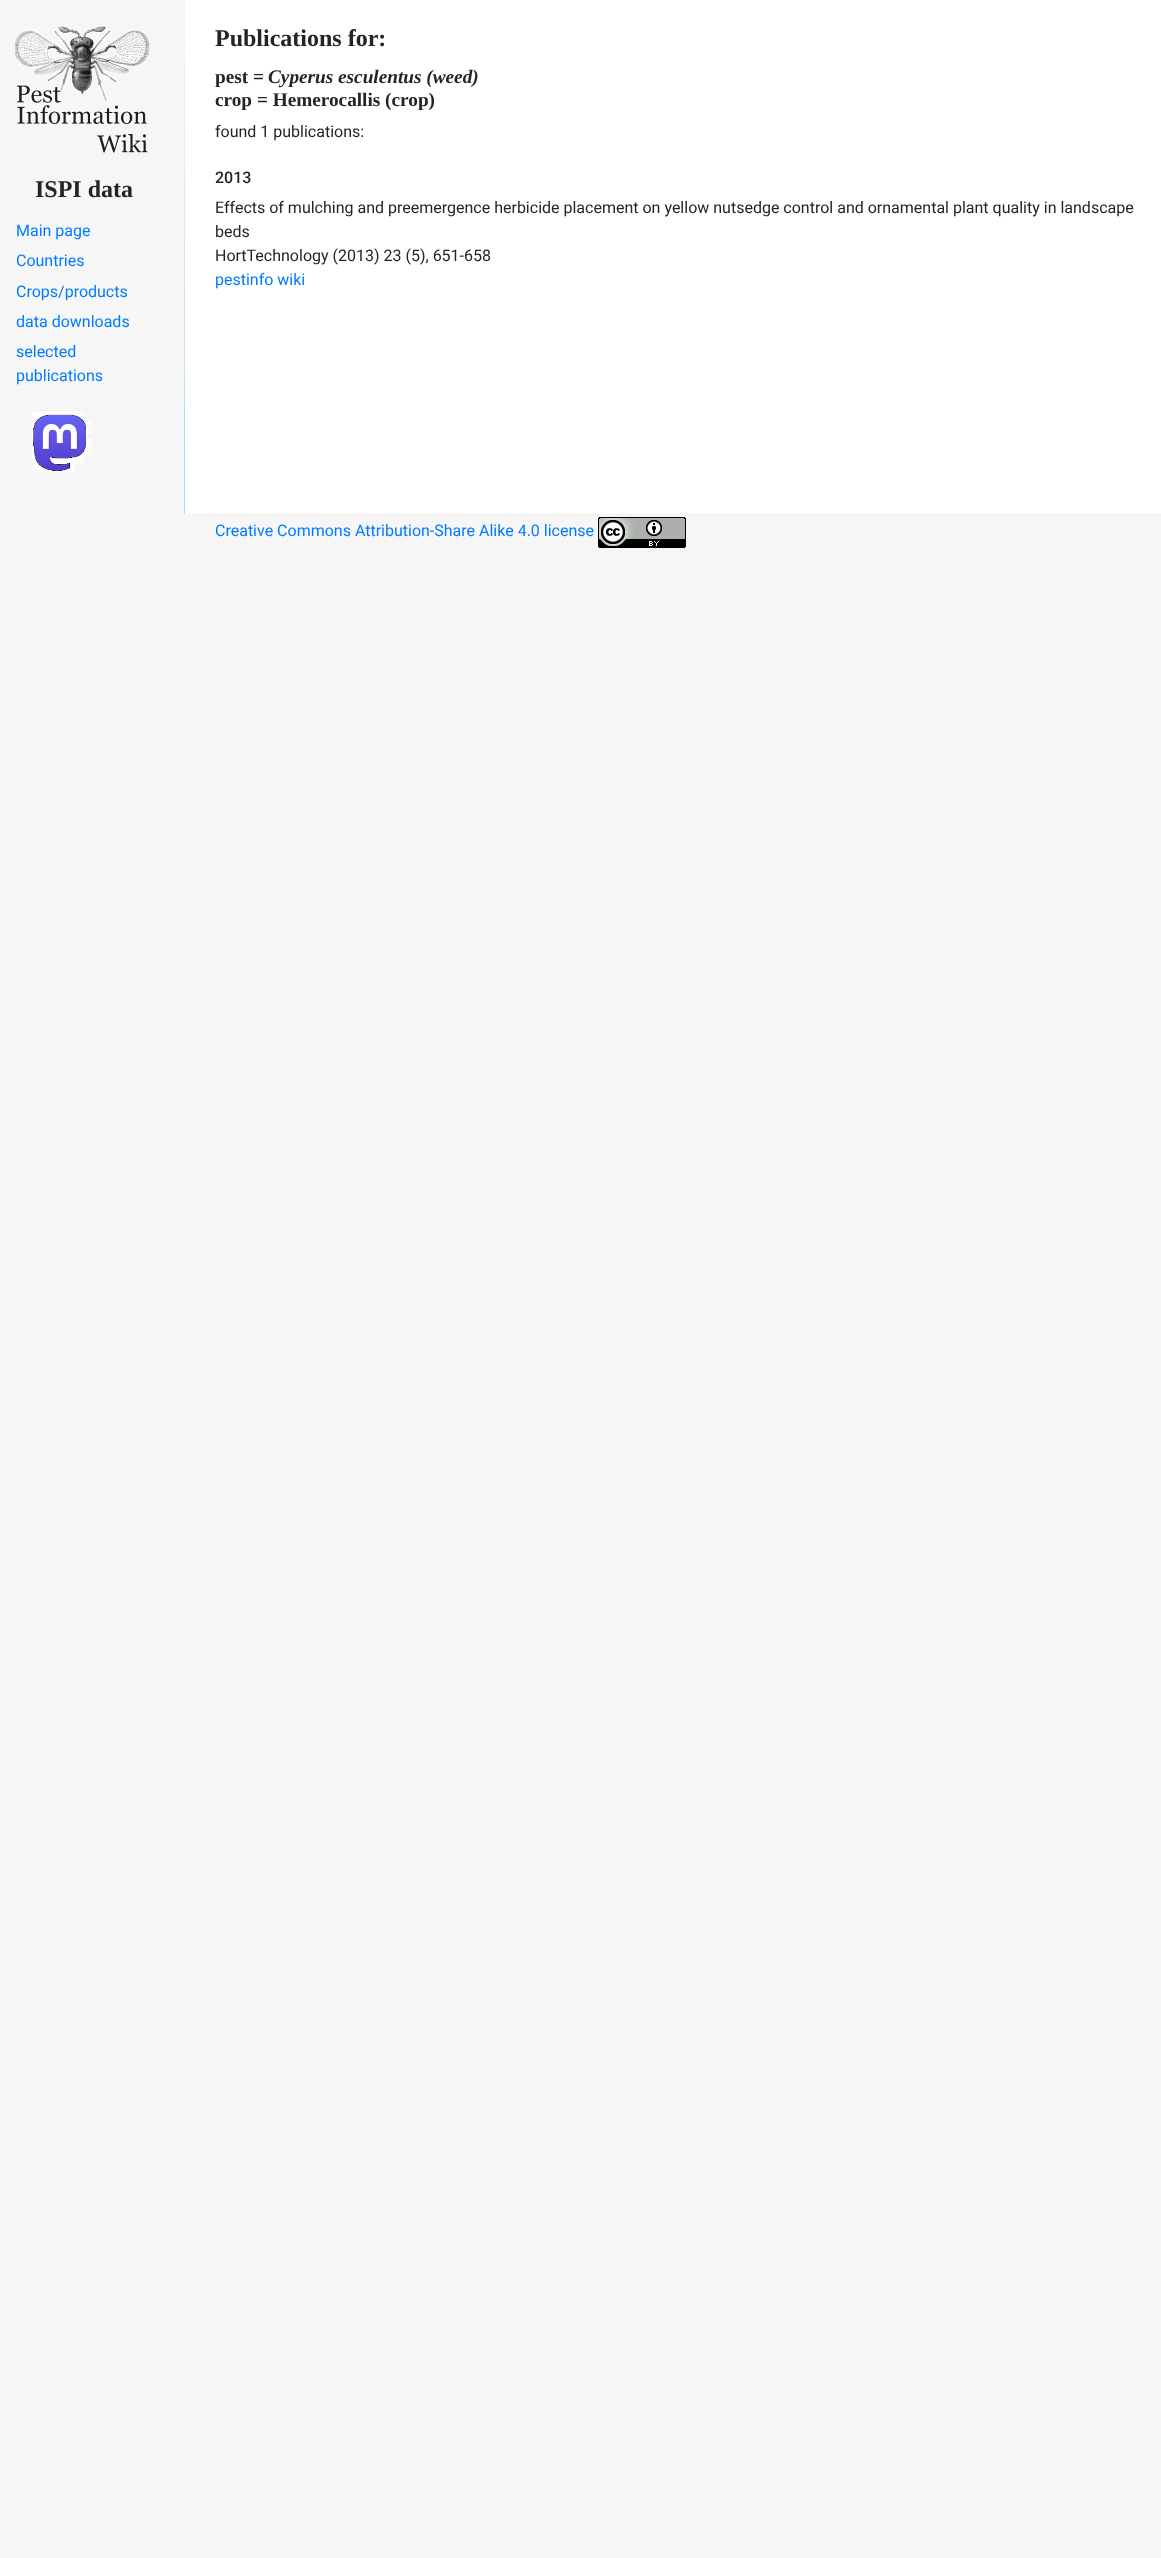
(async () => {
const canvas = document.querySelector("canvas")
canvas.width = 1161
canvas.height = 2558
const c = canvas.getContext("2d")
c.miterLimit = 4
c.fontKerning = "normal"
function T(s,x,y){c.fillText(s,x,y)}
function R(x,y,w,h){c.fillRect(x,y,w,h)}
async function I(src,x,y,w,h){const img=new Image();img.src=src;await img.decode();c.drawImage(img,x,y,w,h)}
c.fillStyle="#f6f6f6"
R(0,0,1161,2558)
await I("1.png",15,25,135,128)
c.font="bold 24px Liberation Serif"
c.fillStyle="#212529"
T("ISPI data",35,197)
c.font="16px Roboto"
c.fillStyle="#007bff"
T("Main page",16,236)
T("Countries",16,266)
T("Crops/products",16,297)
T("data downloads",16,327)
T("selected",16,357)
T("publications",16,381)
await I("2.png",32,412,61,61)
c.fillStyle="#fff"
R(185,0,976,513)
await I("3.png",184,22,1,492)
c.font="bold 24px Liberation Serif"
c.fillStyle="#212529"
T("Publications for:",215,46)
c.font="bold 19.25px Liberation Serif"
T("pest =",215,83)
c.font="italic bold 19.25px Liberation Serif"
T("Cyperus esculentus (weed)",268,83)
c.font="bold 19.25px Liberation Serif"
T("crop = Hemerocallis (crop)",215,106)
c.font="16px Roboto"
T("found 1 publications:",215,137)
c.font="500 16px Roboto"
T("2013",215,183)
c.font="16px Roboto"
T("Effects of mulching and preemergence herbicide placement on yellow nutsedge control and ornamental plant quality in landscape",215,213)
T("beds",215,237)
T("HortTechnology (2013) 23 (5), 651-658",215,261)
c.fillStyle="#007bff"
T("pestinfo wiki",215,285)
T("Creative Commons Attribution-Share Alike 4.0 license",215,536)
await I("4.png",598,517,88,31)
})()
